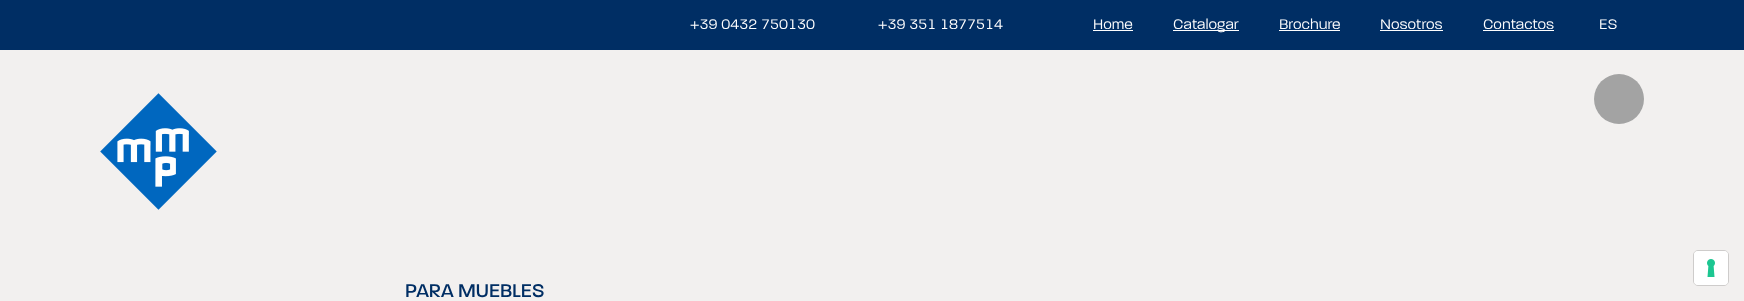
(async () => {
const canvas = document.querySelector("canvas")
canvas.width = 1744
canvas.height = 301
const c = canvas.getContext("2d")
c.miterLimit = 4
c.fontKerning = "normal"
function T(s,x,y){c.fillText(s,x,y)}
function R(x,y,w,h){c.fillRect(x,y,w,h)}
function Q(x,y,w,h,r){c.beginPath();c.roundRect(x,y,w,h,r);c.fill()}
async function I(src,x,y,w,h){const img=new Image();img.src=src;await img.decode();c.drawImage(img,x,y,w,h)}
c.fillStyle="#f2f0ef"
R(0,0,1744,301)
c.fillStyle="#002e64"
R(0,0,1744,50)
c.font="15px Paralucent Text"
c.fillStyle="#fff"
T("+39 0432 750130",690,29)
T("+39 351 1877514",878,29)
T("Home",1093,29)
R(1093,30,40,1)
R(1173,30,66,1)
T("Catalogar",1173,29)
T("Brochure",1279,29)
R(1279,30,61,1)
T("Nosotros",1380,29)
R(1380,30,63,1)
T("Contactos",1483,29)
R(1483,30,71,1)
T("ES",1599,29)
await I("1.png",100,93,117,117)
c.fillStyle="#a3a3a3"
c.beginPath()
c.arc(1619,99,25,0,7)
c.fill()
c.font="500 20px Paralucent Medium"
c.fillStyle="#002e64"
T("PARA MUEBLES",405,297)
c.beginPath()
c.roundRect(1693.5,250.5,35,35,4.5)
c.strokeStyle="#cecccb"
c.stroke()
c.fillStyle="#fff"
Q(1694,251,34,34,4)
await I("2.png",1707,259,8,18)
})()
